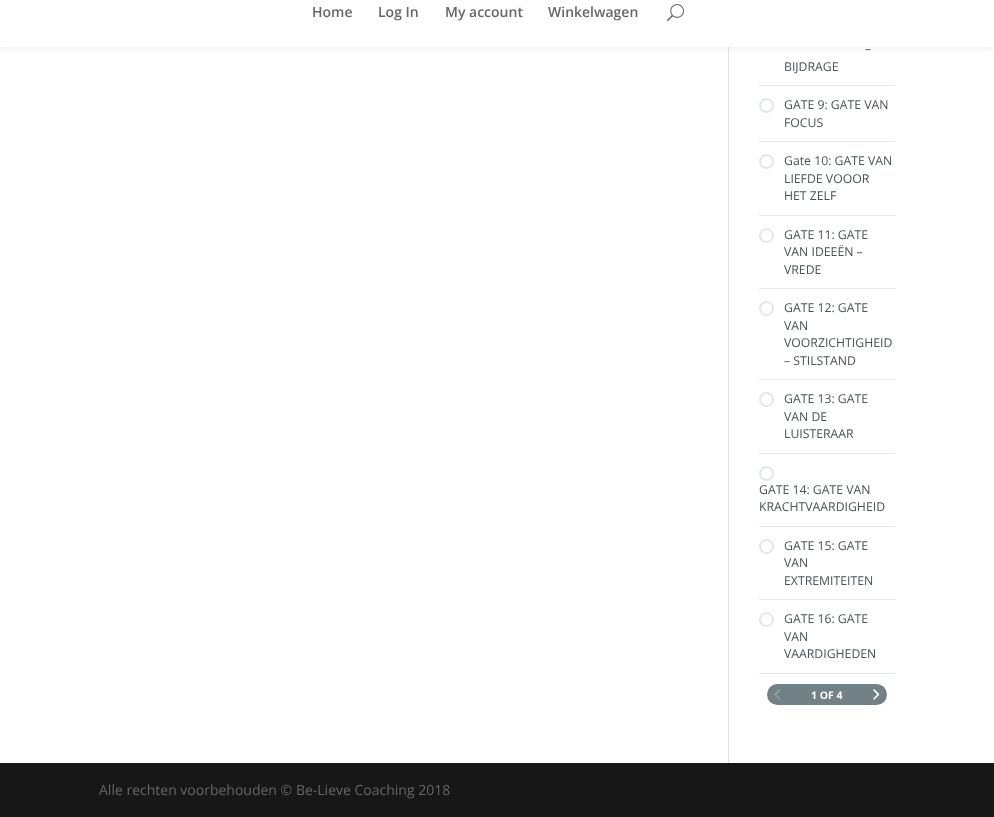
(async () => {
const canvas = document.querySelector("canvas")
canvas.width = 994
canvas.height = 817
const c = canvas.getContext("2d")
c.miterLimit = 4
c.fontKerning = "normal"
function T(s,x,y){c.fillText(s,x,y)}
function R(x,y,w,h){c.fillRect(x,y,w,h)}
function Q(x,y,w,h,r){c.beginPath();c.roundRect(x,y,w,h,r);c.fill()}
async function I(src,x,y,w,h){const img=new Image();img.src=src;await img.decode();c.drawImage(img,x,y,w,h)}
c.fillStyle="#fff"
R(0,0,994,817)
c.fillStyle="#e2e2e2"
R(728,47,1,716)
c.fillStyle="#0000001a"
c.filter="blur(3.5px)"
c.beginPath()
c.rect(0,0,994,47)
c.fill()
c.filter="none"
c.fillStyle="#fff"
R(0,0,994,47)
c.font="600 14px Open Sans"
c.fillStyle="#666"
T("Home",312,17)
T("Log In",378,17)
T("My account",445,17)
T("Winkelwagen",548,17)
await I("1.png",667,4,17,18)
c.fillStyle="#e2e7ed"
R(759,85,136,1)
c.font="12.25px Open Sans"
c.fillStyle="#495255"
T("–",865,53)
T("BIJDRAGE",784,71)
c.fillStyle="#e2e7ed"
R(759,141,136,1)
c.beginPath()
c.arc(766.5,105.5,6.5,0,7)
c.strokeStyle="#e2e7ed"
c.lineWidth=2
c.stroke()
c.fillStyle="#495255"
T("GATE 9: GATE VAN",784,109)
T("FOCUS",784,127)
c.fillStyle="#e2e7ed"
R(759,215,136,1)
c.beginPath()
c.arc(766.5,161.5,6.5,0,7)
c.stroke()
c.fillStyle="#495255"
T("Gate 10: GATE VAN",784,165)
T("LIEFDE VOOOR",784,183)
T("HET ZELF",784,200)
c.fillStyle="#e2e7ed"
R(759,288,136,1)
c.beginPath()
c.arc(766.5,235.5,6.5,0,7)
c.stroke()
c.fillStyle="#495255"
T("GATE 11: GATE",784,239)
T("VAN IDEEËN –",784,256)
T("VREDE",784,274)
c.fillStyle="#e2e7ed"
R(759,379,136,1)
c.beginPath()
c.arc(766.5,308.5,6.5,0,7)
c.stroke()
c.fillStyle="#495255"
T("GATE 12: GATE",784,312)
T("VAN",784,330)
T("VOORZICHTIGHEID",784,347)
T("– STILSTAND",784,365)
c.fillStyle="#e2e7ed"
R(759,453,136,1)
c.beginPath()
c.arc(766.5,399.5,6.5,0,7)
c.stroke()
c.fillStyle="#495255"
T("GATE 13: GATE",784,403)
T("VAN DE",784,421)
T("LUISTERAAR",784,438)
c.fillStyle="#e2e7ed"
R(759,526,136,1)
c.beginPath()
c.arc(766.5,473.5,6.5,0,7)
c.stroke()
c.fillStyle="#495255"
T("GATE 14: GATE VAN",759,494)
T("KRACHTVAARDIGHEID",759,511)
c.fillStyle="#e2e7ed"
R(759,599,136,1)
c.beginPath()
c.arc(766.5,546.5,6.5,0,7)
c.stroke()
c.fillStyle="#495255"
T("GATE 15: GATE",784,550)
T("VAN",784,567)
T("EXTREMITEITEN",784,585)
c.fillStyle="#e2e7ed"
R(759,673,136,1)
c.beginPath()
c.arc(766.5,619.5,6.5,0,7)
c.stroke()
c.fillStyle="#495255"
T("GATE 16: GATE",784,623)
T("VAN",784,641)
T("VAARDIGHEDEN",784,658)
c.fillStyle="#728188"
Q(767,684,120,21,10.5)
await I("2.png",774,689,7,11)
c.font="bold 10.5px Open Sans"
c.fillStyle="#fff"
T("1 OF 4",811,699)
await I("3.png",873,689,7,11)
c.fillStyle="#171717"
R(0,763,994,54)
c.font="14px Open Sans"
c.fillStyle="#666"
T("Alle rechten voorbehouden © Be-Lieve Coaching 2018",99,795)
})()
